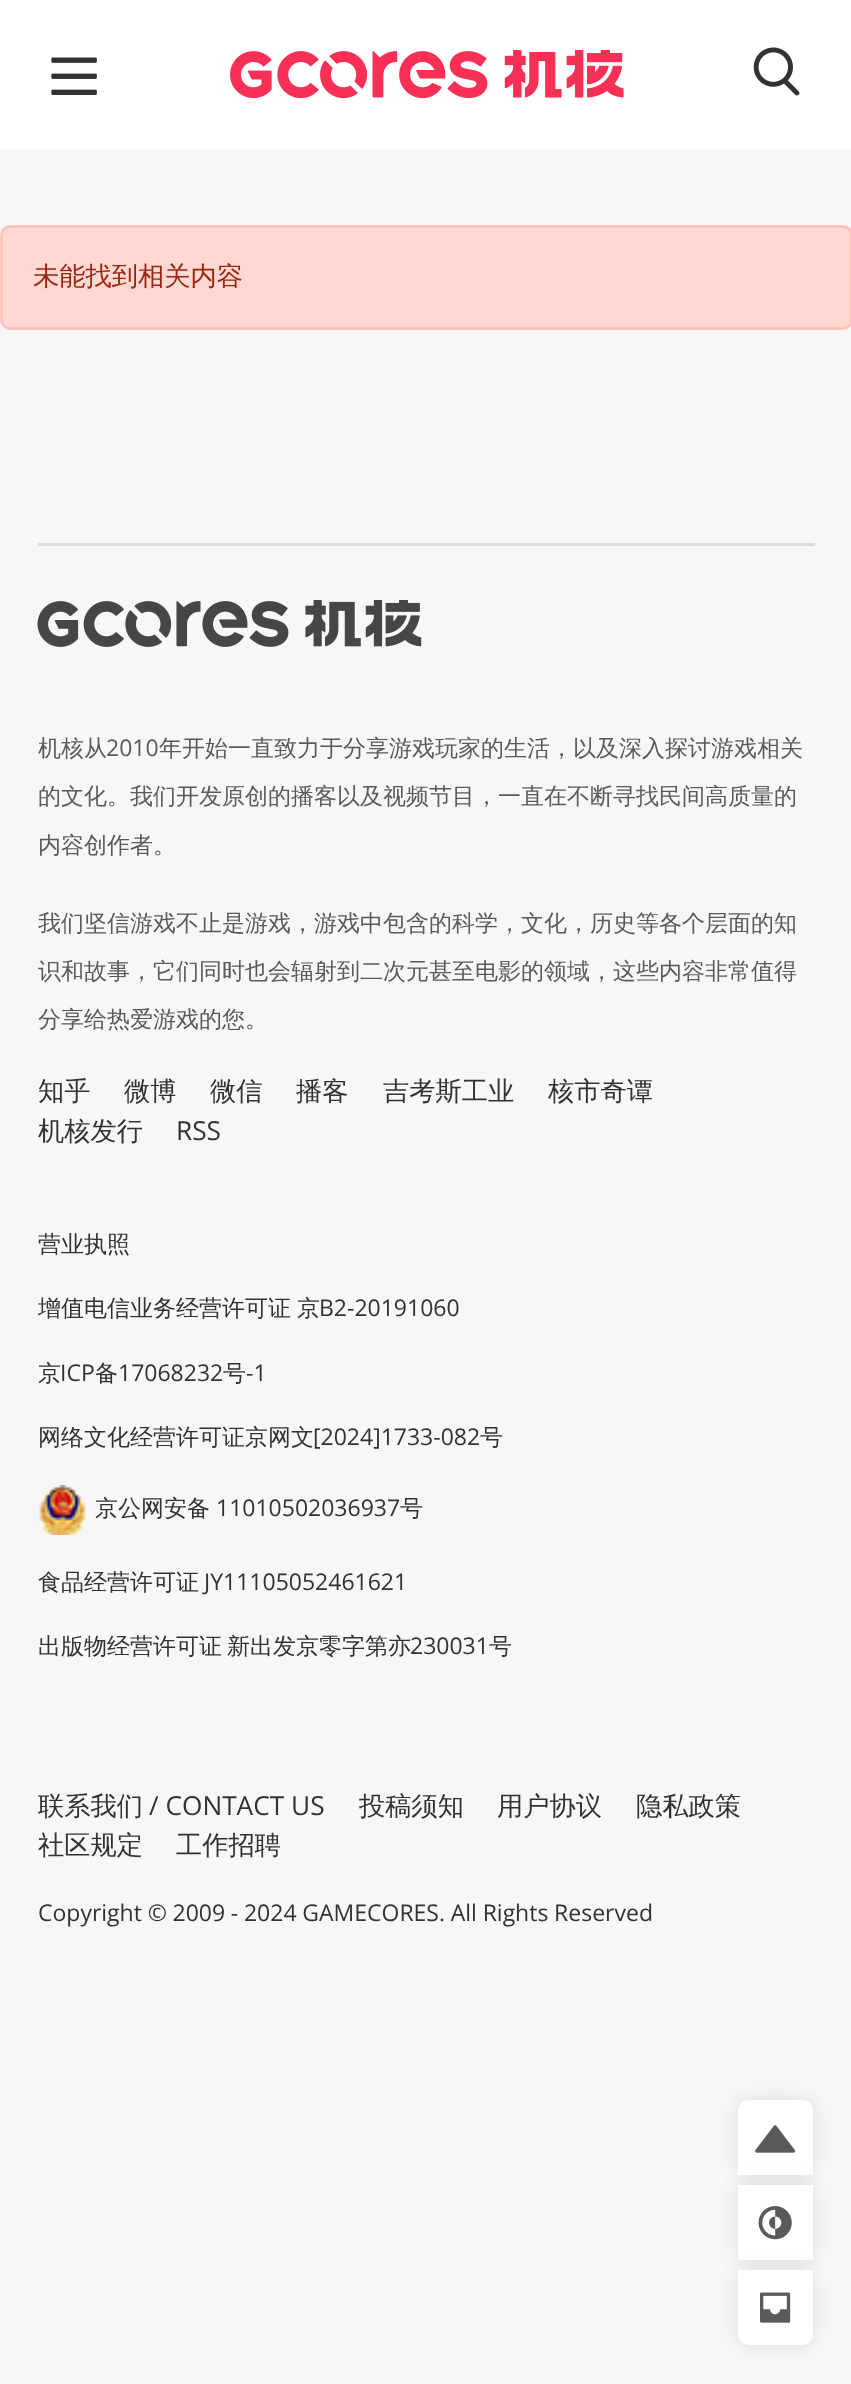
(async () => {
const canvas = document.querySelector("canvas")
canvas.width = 851
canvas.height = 2384
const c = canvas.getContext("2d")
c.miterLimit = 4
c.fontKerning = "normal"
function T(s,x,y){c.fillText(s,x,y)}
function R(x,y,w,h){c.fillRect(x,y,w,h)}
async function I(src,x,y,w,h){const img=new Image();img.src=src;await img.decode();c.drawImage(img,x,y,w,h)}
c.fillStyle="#f7f7f8"
R(0,0,851,2384)
c.fillStyle="#fff"
R(0,0,851,150)
await I("1.png",51,57,46,38)
await I("2.png",230,50,394,49)
await I("3.png",753,47,47,49)
c.fillStyle="#ffd8d2"
c.beginPath()
c.roundRect(1.5,226.5,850,102,8.5)
c.fill()
c.strokeStyle="#ffc5bb"
c.lineWidth=3
c.stroke()
c.font="500 26.25px WenQuanYi Zen Hei"
c.fillStyle="#992511"
T("未能找到相关内容",33,285)
c.fillStyle="#dcdcdc"
R(38,543,777,3)
await I("4.png",37,600,385,47)
c.font="500 23px WenQuanYi Zen Hei"
c.fillStyle="#5a5a5a"
T("机核从",38,756)
c.font="23px Open Sans"
T("2010",106,756)
c.font="500 23px WenQuanYi Zen Hei"
T("年开始一直致力于分享游戏玩家的生活，以及深入探讨游戏相关",159,756)
T("的文化。我们开发原创的播客以及视频节目，一直在不断寻找民间高质量的",38,804)
T("内容创作者。",38,853)
T("我们坚信游戏不止是游戏，游戏中包含的科学，文化，历史等各个层面的知",38,931)
T("识和故事，它们同时也会辐射到二次元甚至电影的领域，这些内容非常值得",38,979)
T("分享给热爱游戏的您。",38,1027)
c.font="500 26.25px WenQuanYi Zen Hei"
c.fillStyle="#323232"
T("知乎",38,1100)
T("微博",124,1100)
T("微信",210,1100)
T("播客",296,1100)
T("吉考斯工业",383,1100)
T("核市奇谭",548,1100)
T("机核发行",38,1140)
c.font="26.25px Open Sans"
T("RSS",176,1140)
c.font="500 23px WenQuanYi Zen Hei"
T("营业执照",38,1252)
c.wordSpacing="-1px"
T("增值电信业务经营许可证 京",38,1316)
c.wordSpacing="0px"
c.font="23px Open Sans"
T("B2-20191060",319,1316)
c.font="500 23px WenQuanYi Zen Hei"
T("京",38,1381)
c.font="23px Open Sans"
T("ICP",60,1381)
c.font="500 23px WenQuanYi Zen Hei"
T("备",95,1381)
c.font="23px Open Sans"
T("17068232",118,1381)
c.font="500 23px WenQuanYi Zen Hei"
T("号",223,1381)
c.font="23px Open Sans"
T("-1",246,1381)
c.font="500 23px WenQuanYi Zen Hei"
T("网络文化经营许可证京网文",38,1445)
c.font="23px Open Sans"
T("[2024]1733-082",313,1445)
c.font="500 23px WenQuanYi Zen Hei"
T("号",480,1445)
await I("5.png",39,1485,47,50)
T("京公网安备",95,1516)
c.font="23px Open Sans"
T("11010502036937",216,1516)
c.font="500 23px WenQuanYi Zen Hei"
T("号",400,1516)
T("食品经营许可证",38,1590)
c.font="23px Open Sans"
T("JY11105052461621",204,1590)
c.wordSpacing="-2px"
c.font="500 23px WenQuanYi Zen Hei"
T("出版物经营许可证 新出发京零字第亦",38,1654)
c.wordSpacing="0px"
c.font="23px Open Sans"
T("230031",410,1654)
c.font="500 23px WenQuanYi Zen Hei"
T("号",489,1654)
c.font="500 26.25px WenQuanYi Zen Hei"
T("联系我们",38,1815)
c.font="26.25px Open Sans"
T("/ CONTACT US",149,1815)
c.font="500 26.25px WenQuanYi Zen Hei"
T("投稿须知",359,1815)
T("用户协议",497,1815)
T("隐私政策",636,1815)
T("社区规定",38,1854)
T("工作招聘",176,1854)
c.wordSpacing="-0.25px"
c.font="23px Open Sans"
T("Copyright © 2009 - 2024 GAMECORES. All Rights Reserved",38,1921)
c.fillStyle="#0000001a"
c.filter="blur(10px)"
c.beginPath()
c.roundRect(738,2100,75,75,10)
c.fill()
c.filter="none"
c.fillStyle="#fff"
c.beginPath()
c.roundRect(738,2100,75,75,[10,10,0,0])
c.fill()
await I("6.png",755,2125,41,28)
c.fillStyle="#0000001a"
c.filter="blur(10px)"
c.beginPath()
c.rect(738,2185,75,75)
c.fill()
c.filter="none"
c.fillStyle="#fff"
R(738,2185,75,75)
await I("7.png",758,2206,34,34)
c.fillStyle="#0000001a"
c.filter="blur(10px)"
c.beginPath()
c.roundRect(738,2270,75,75,10)
c.fill()
c.filter="none"
c.fillStyle="#fff"
c.beginPath()
c.roundRect(738,2270,75,75,[0,0,10,10])
c.fill()
await I("8.png",760,2292,31,31)
})()
